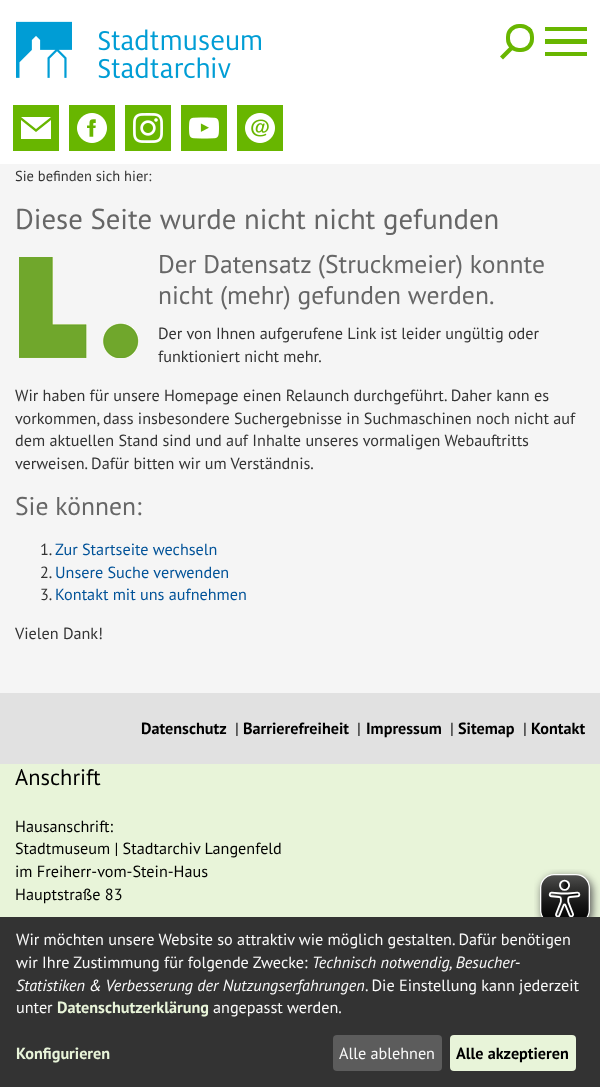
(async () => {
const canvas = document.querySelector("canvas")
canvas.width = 600
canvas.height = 1087
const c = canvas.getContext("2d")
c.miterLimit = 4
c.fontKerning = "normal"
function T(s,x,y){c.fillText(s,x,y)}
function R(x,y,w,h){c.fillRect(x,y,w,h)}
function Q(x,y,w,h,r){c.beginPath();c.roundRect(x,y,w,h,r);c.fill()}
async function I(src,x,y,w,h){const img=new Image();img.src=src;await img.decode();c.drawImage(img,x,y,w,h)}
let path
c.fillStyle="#f5f5f5"
R(0,0,600,1087)
c.fillStyle="#fff"
R(0,0,600,164)
c.fillStyle="#68b600"
path = new Path2D("M500 56.5l29.5-29.5l3 3l-29.5 29.5z")
c.fill(path)
c.fillStyle="#fff"
c.beginPath()
c.roundRect(508,26,24,24,11)
c.fill()
c.strokeStyle="#68b600"
c.lineWidth=4
c.stroke()
c.fillStyle="#68b600"
R(545,39,42,5)
R(545,27,42,4)
R(545,52,42,4)
await I("1.png",16,21,245,58)
R(13,105,46,46)
c.fillStyle="#fff"
path = new Path2D("M36 129l-15-12h30zm0 3l-15-12v19h30v-19z")
c.fill(path)
c.fillStyle="#68b600"
R(69,105,46,46)
await I("2.png",77,113,30,30)
R(125,105,46,46)
await I("3.png",133,113,30,30)
R(181,105,46,46)
await I("4.png",189,117,30,22)
R(237,105,46,46)
await I("5.png",245,113,30,30)
c.font="14.5px PT Sans"
c.fillStyle="#333"
T("Sie befinden sich hier:",15,181)
c.font="28.75px PT Sans"
c.fillStyle="#666"
T("Diese Seite wurde nicht nicht gefunden",15,229)
c.font="25.6px PT Sans"
T("Der Datensatz (Struckmeier) konnte",158,273)
T("nicht (mehr) gefunden werden.",158,304)
c.font="16.2px PT Sans"
c.fillStyle="#333"
T("Der von Ihnen aufgerufene Link ist leider ungültig oder",158,339)
T("funktioniert nicht mehr.",158,362)
T("Wir haben für unsere Homepage einen Relaunch durchgeführt. Daher kann es",15,401)
T("vorkommen, dass insbesondere Suchergebnisse in Suchmaschinen noch nicht auf",15,424)
T("dem aktuellen Stand sind und auf Inhalte unseres vormaligen Webauftritts",15,446)
T("verweisen. Dafür bitten wir um Verständnis.",15,469)
c.font="25.6px PT Sans"
c.fillStyle="#666"
T("Sie können:",15,515)
c.font="16.2px PT Sans"
c.fillStyle="#333"
T("1.",40,555)
c.fillStyle="#005298"
T("Zur Startseite wechseln",55,555)
c.fillStyle="#333"
T("2.",40,578)
c.fillStyle="#005298"
T("Unsere Suche verwenden",55,578)
c.fillStyle="#333"
T("3.",40,600)
c.fillStyle="#005298"
T("Kontakt mit uns aufnehmen",55,600)
c.fillStyle="#333"
T("Vielen Dank!",15,639)
await I("6.png",19,257,120,101)
c.fillStyle="#e8f4d9"
R(0,764,600,153)
c.fillStyle="#e1e1e1"
R(0,693,600,71)
c.font="bold 16.2px PT Sans"
c.fillStyle="#000"
T("Datenschutz",141,734)
c.font="16.2px PT Sans"
T("|",235,734)
c.font="bold 16.2px PT Sans"
T("Barrierefreiheit",243,734)
c.font="16.2px PT Sans"
T("|",357,734)
c.font="bold 16.2px PT Sans"
T("Impressum",366,734)
c.font="16.2px PT Sans"
T("|",450,734)
c.font="bold 16.2px PT Sans"
T("Sitemap",458,734)
c.font="16.2px PT Sans"
T("|",523,734)
c.font="bold 16.2px PT Sans"
T("Kontakt",531,734)
c.font="22.5px PT Sans"
T("Anschrift",15,785)
c.font="16.2px PT Sans"
T("Hausanschrift:",15,832)
T("Stadtmuseum | Stadtarchiv Langenfeld",15,854)
T("im Freiherr-vom-Stein-Haus",15,877)
T("Hauptstraße 83",15,900)
await I("7.png",534,869,66,48)
c.fillStyle="#333"
R(0,917,600,170)
c.fillStyle="#fafafa"
T("Wir möchten unsere Website so attraktiv wie möglich gestalten. Dafür benötigen",16,945)
T("wir Ihre Zustimmung für folgende Zwecke:",16,968)
c.font="italic 16.2px PT Sans"
T("Technisch notwendig, Besucher-",312,968)
T("Statistiken & Verbesserung der Nutzungserfahrungen",16,991)
c.font="16.2px PT Sans"
T(". Die Einstellung kann jederzeit",365,991)
T("unter",16,1013)
c.font="bold 16.2px PT Sans"
c.fillStyle="#e8f4d9"
T("Datenschutzerklärung",57,1013)
c.font="16.2px PT Sans"
c.fillStyle="#fafafa"
T("angepasst werden.",213,1013)
c.font="bold 16.2px PT Sans"
c.fillStyle="#e8f4d9"
T("Konfigurieren",16,1059)
c.fillStyle="#5c5c5c"
Q(333,1035,109,36,4)
c.font="16.2px PT Sans"
c.fillStyle="#fafafa"
T("Alle ablehnen",339,1059)
c.fillStyle="#e8f4d9"
Q(450,1035,126,36,4)
c.font="bold 16.2px PT Sans"
c.fillStyle="#000"
T("Alle akzeptieren",456,1059)
})()
